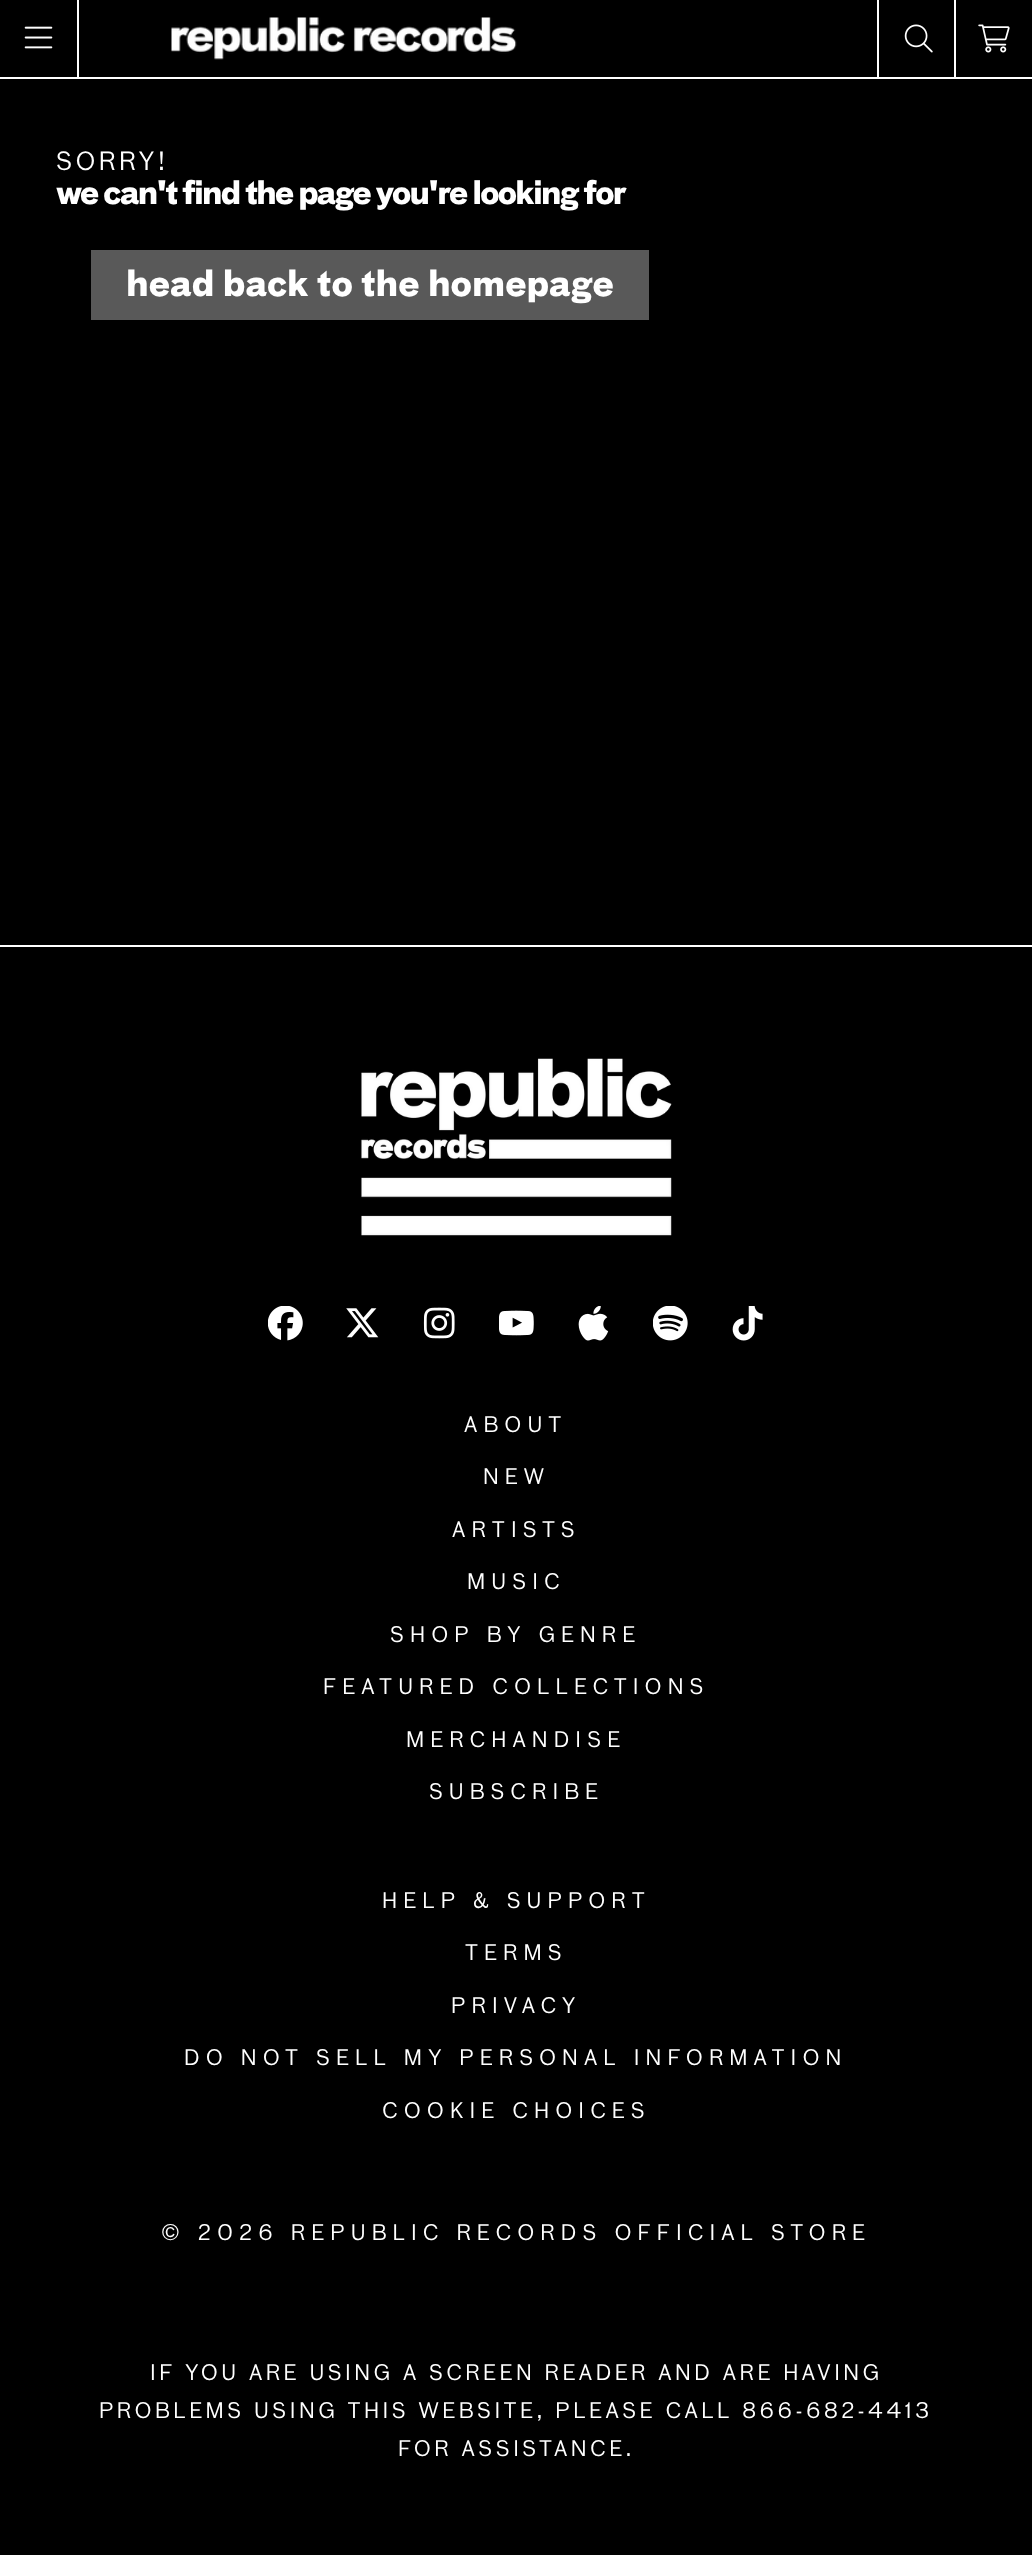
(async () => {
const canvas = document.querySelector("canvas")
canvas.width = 1032
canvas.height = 2555
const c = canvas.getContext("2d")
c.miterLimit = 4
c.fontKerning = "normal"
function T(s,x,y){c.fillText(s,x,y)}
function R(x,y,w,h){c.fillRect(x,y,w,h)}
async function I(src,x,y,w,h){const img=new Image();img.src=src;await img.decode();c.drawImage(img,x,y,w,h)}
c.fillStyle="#000"
R(0,0,1032,2555)
c.fillStyle="#fff"
R(0,77,1032,2)
R(77,0,2,77)
await I("1.png",24,26,29,23)
await I("2.png",171,17,346,43)
R(877,0,2,77)
await I("3.png",904,24,29,29)
R(954,0,2,77)
await I("4.png",978,24,32,29)
c.letterSpacing="3.5px"
c.font="24.5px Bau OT"
T("SORRY!",56,170)
c.letterSpacing="-1.75px"
c.font="bold 31.5px Bau OT"
T("we can't find the page you're looking for",56,204)
c.fillStyle="#595959"
R(91,250,558,70)
c.letterSpacing="0px"
c.font="bold 35px Bau OT"
c.fillStyle="#fff"
T("head back to the homepage",126,296)
R(0,945,1032,2)
await I("5.png",361,1058,311,178)
await I("6.png",268,1306,35,35)
await I("7.png",346,1308,33,30)
await I("8.png",423,1307,32,32)
await I("9.png",499,1310,35,26)
await I("10.png",578,1306,31,35)
await I("11.png",653,1306,35,35)
await I("12.png",732,1306,31,35)
c.letterSpacing="6.1px"
c.font="21px Bau OT"
T("ABOUT",464,1432)
T("NEW",483,1484)
T("ARTISTS",452,1537)
T("MUSIC",467,1589)
T("SHOP BY GENRE",390,1642)
T("FEATURED COLLECTIONS",323,1694)
T("MERCHANDISE",406,1747)
T("SUBSCRIBE",429,1799)
T("HELP & SUPPORT",382,1908)
T("TERMS",465,1960)
T("PRIVACY",451,2013)
T("DO NOT SELL MY PERSONAL INFORMATION",184,2065)
T("COOKIE CHOICES",382,2118)
T("© 2026 REPUBLIC RECORDS OFFICIAL STORE",161,2240)
c.letterSpacing="3.5px"
T("IF YOU ARE USING A SCREEN READER AND ARE HAVING",150,2380)
T("PROBLEMS USING THIS WEBSITE, PLEASE CALL 866-682-4413",99,2418)
T("FOR ASSISTANCE.",398,2456)
})()
